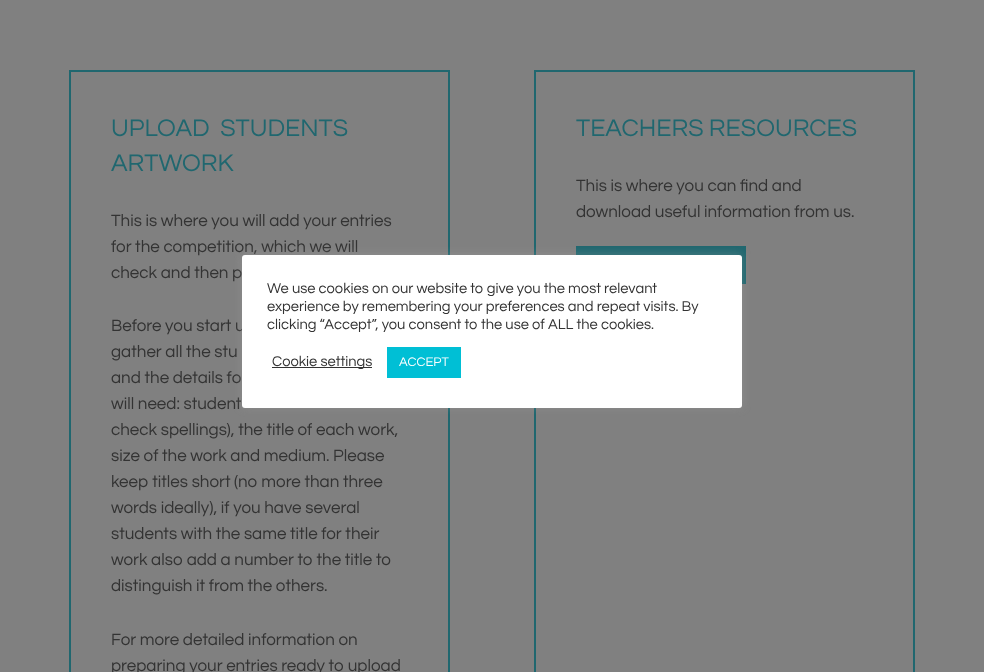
(async () => {
const canvas = document.querySelector("canvas")
canvas.width = 984
canvas.height = 672
const c = canvas.getContext("2d")
c.miterLimit = 4
c.fontKerning = "normal"
function T(s,x,y){c.fillText(s,x,y)}
function R(x,y,w,h){c.fillRect(x,y,w,h)}
function Q(x,y,w,h,r){c.beginPath();c.roundRect(x,y,w,h,r);c.fill()}
c.fillStyle="#808080"
R(0,0,984,672)
c.strokeStyle="#20676f"
c.lineWidth=2
c.strokeRect(70,71,379,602)
c.font="25px Questrial"
c.fillStyle="#20676f"
T("UPLOAD  STUDENTS",111,136)
T("ARTWORK",111,171)
c.font="17px Questrial"
c.fillStyle="#333"
T("This is where you will add your entries",111,226)
T("for the competition, which we will",111,252)
T("check and then p",111,278)
T("Before you start u",111,331)
T("gather all the stu",111,357)
T("and the details fo",111,383)
T("will need: student",111,409)
T("check spellings), the title of each work,",111,435)
T("size of the work and medium. Please",111,461)
T("keep titles short (no more than three",111,487)
T("words ideally), if you have several",111,513)
T("students with the same title for their",111,539)
T("work also add a number to the title to",111,565)
T("distinguish it from the others.",111,591)
T("For more detailed information on",111,645)
T("preparing your entries ready to upload",111,671)
c.strokeRect(535,71,379,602)
c.font="25px Questrial"
c.fillStyle="#20676f"
T("TEACHERS RESOURCES",576,136)
c.font="17px Questrial"
c.fillStyle="#333"
T("This is where you can find and",576,191)
T("download useful information from us.",576,217)
c.fillStyle="#20676f"
R(576,246,170,38)
c.fillStyle="#acabab4d"
c.filter="blur(5px)"
c.beginPath()
c.roundRect(242,254,500,153,3)
c.fill()
c.filter="none"
c.fillStyle="#fff"
Q(242,255,500,153,3)
c.font="14.7px Questrial"
c.fillStyle="#333"
T("We use cookies on our website to give you the most relevant",267,293)
T("experience by remembering your preferences and repeat visits. By",267,311)
T("clicking “Accept”, you consent to the use of ALL the cookies.",267,329)
R(272,367,100,1)
T("Cookie settings",272,366)
c.fillStyle="#00bfd5"
R(387,347,74,31)
c.font="13px Questrial"
c.fillStyle="#fff"
T("ACCEPT",399,366)
})()
